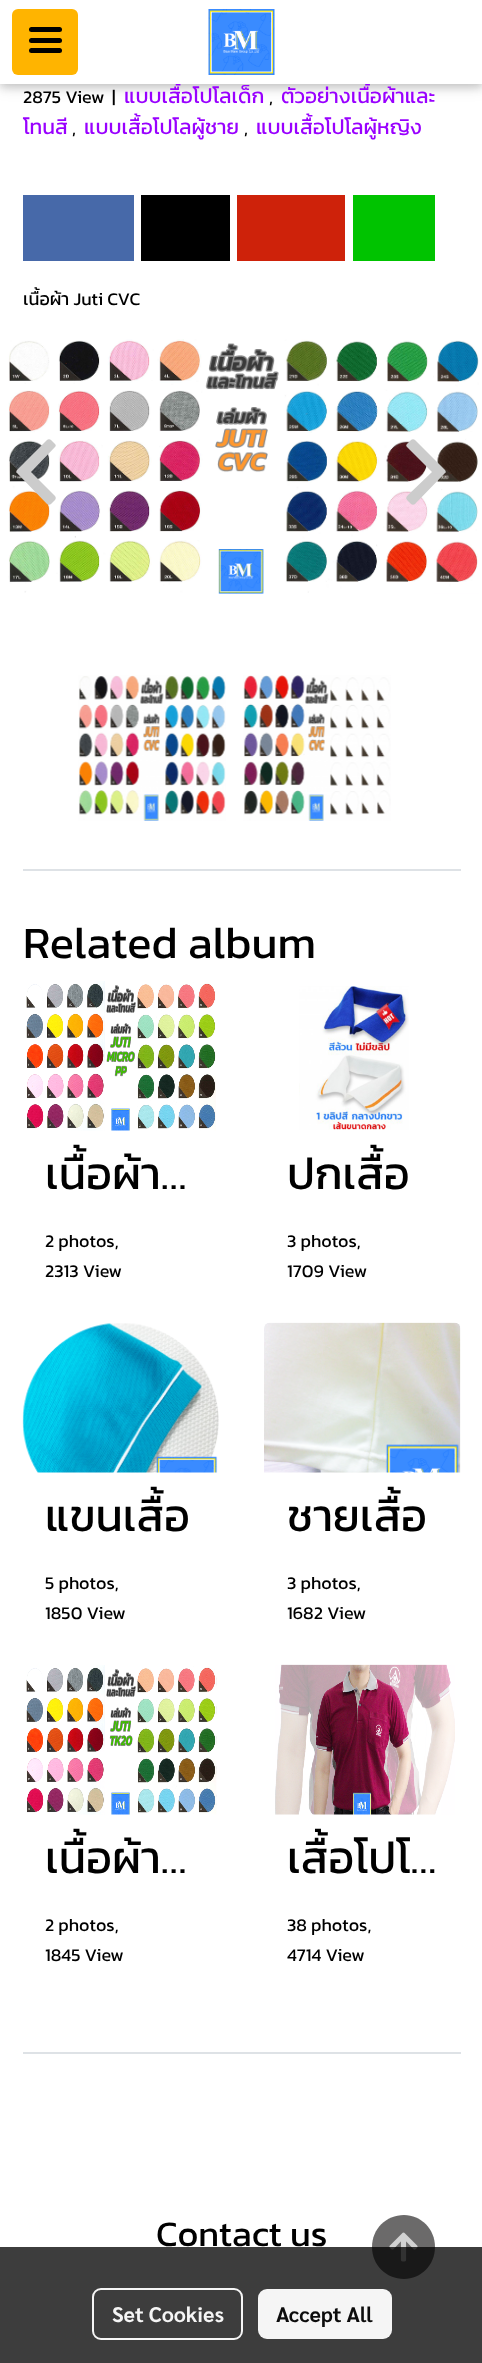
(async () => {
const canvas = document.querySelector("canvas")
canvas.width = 482
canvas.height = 2363
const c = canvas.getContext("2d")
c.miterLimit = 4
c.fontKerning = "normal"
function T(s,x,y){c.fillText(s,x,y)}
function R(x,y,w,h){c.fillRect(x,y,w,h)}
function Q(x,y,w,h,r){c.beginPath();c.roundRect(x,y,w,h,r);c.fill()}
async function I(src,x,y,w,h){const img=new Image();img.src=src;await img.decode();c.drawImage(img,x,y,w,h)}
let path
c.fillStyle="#fff"
R(0,0,482,2363)
c.fillStyle="#0000001f"
c.filter="blur(7.5px)"
c.beginPath()
c.rect(0,3,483,84)
c.fill()
c.filter="none"
c.fillStyle="#00000029"
c.filter="blur(4px)"
c.beginPath()
c.rect(0,3,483,84)
c.fill()
c.filter="none"
c.font="21px Kanit"
c.fillStyle="#90f"
T("แบบเสื้อโปโลเด็ก",124,103)
T("ตัวอย่างเนื้อผ้าและ",281,103)
c.fillStyle="#fff"
R(0,0,482,84)
c.fillStyle="#ffb400"
Q(12,9,66,66,6)
c.fillStyle="#000"
Q(29,38,33,5,2.5)
Q(29,27,33,5,2.5)
Q(29,48,33,5,2.5)
await I("1.png",208,9,67,66)
c.font="18px Kanit"
T("2875 View",23,103)
T("|",112,103)
T(",",269,103)
c.font="21px Kanit"
c.fillStyle="#90f"
T("โทนสี",23,134)
c.font="18px Kanit"
c.fillStyle="#000"
T(",",72,134)
c.font="21px Kanit"
c.fillStyle="#90f"
T("แบบเสื้อโปโลผู้ชาย",84,134)
c.font="18px Kanit"
c.fillStyle="#000"
T(",",244,134)
c.font="21px Kanit"
c.fillStyle="#90f"
T("แบบเสื้อโปโลผู้หญิง",256,134)
c.fillStyle="#4769a9"
R(23,195,111,66)
c.fillStyle="#000"
R(141,195,89,66)
c.fillStyle="#ce220a"
R(237,195,108,66)
c.fillStyle="#00c300"
R(353,195,82,66)
c.font="18px Kanit"
c.fillStyle="#000"
T("เนื้อผ้า Juti CVC",23,305)
await I("2.png",8,339,471,255)
c.fillStyle="#ccc"
path = new Path2D("M17 470l30-30c1-1 3-1 4 0l4 4c1 1 1 2 0 3l-24 25l24 24c1 1 1 3 0 4l-4 4c-1 1-3 1-4 0l-30-31c-1 0-1-2 0-3z")
c.fill(path)
path = new Path2D("M445 473l-30 31c-1 1-3 1-4 0l-4-4c-1-1-1-3 0-4l25-24l-25-25c-1-1-1-2 0-3l4-4c1-1 3-1 4 0l30 30c1 1 1 3 0 3z")
c.fill(path)
await I("3.png",78,675,148,146)
await I("4.png",243,675,148,146)
c.fillStyle="#dee2e6"
R(23,869,438,2)
c.font="45px Kanit"
c.fillStyle="#000"
T("Related album",23,958)
await I("5.png",26,981,190,150)
c.save()
c.beginPath()
c.rect(45,1139,152,67)
c.clip()
T("เนื้อผ้า…",45,1189)
c.restore()
c.font="18px Kanit"
T("2 photos,",45,1247)
T("2313 View",45,1277)
await I("6.png",299,986,110,144)
c.font="45px Kanit"
T("ปกเสื้อ",287,1189)
c.font="18px Kanit"
T("3 photos,",287,1247)
T("1709 View",287,1277)
await I("7.png",22,1323,197,150)
c.font="45px Kanit"
T("แขนเสื้อ",45,1531)
c.font="18px Kanit"
T("5 photos,",45,1589)
T("1850 View",45,1619)
await I("8.png",264,1322,197,151)
c.font="45px Kanit"
T("ชายเสื้อ",287,1531)
c.font="18px Kanit"
T("3 photos,",287,1589)
T("1682 View",287,1619)
await I("9.png",26,1665,191,150)
c.save()
c.beginPath()
c.rect(45,1823,152,67)
c.clip()
c.font="45px Kanit"
T("เนื้อผ้า…",45,1873)
c.restore()
T("2 photos,",45,1931)
T("1845 View",45,1961)
await I("10.png",275,1664,180,151)
c.save()
c.beginPath()
c.rect(287,1823,151,67)
c.clip()
c.font="45px Kanit"
T("เสื้อโปโ…",287,1873)
c.restore()
T("38 photos,",287,1931)
T("4714 View",287,1961)
c.fillStyle="#dee2e6"
R(23,2052,438,2)
c.font="36px Kanit"
c.fillStyle="#000"
T("Contact us",156,2246)
c.fillStyle="#6b6a6a"
path = new Path2D("M404 2215c-18 0-32 14-32 32c0 18 14 32 32 32c17 0 31-14 31-32c0-18-14-32-31-32z")
c.fill(path)
await I("11.png",389,2232,29,30)
c.fillStyle="#000000c2"
R(0,2247,482,116)
c.beginPath()
c.roundRect(93,2289,149,50,8)
c.strokeStyle="#fffffff2"
c.lineWidth=2
c.stroke()
c.font="bold 21px Sarabun"
c.fillStyle="#f5f5f5"
T("Set Cookies",112,2322)
c.fillStyle="#fffffff2"
Q(258,2289,134,50,9)
c.fillStyle="#0c0c0c"
T("Accept All",276,2322)
})()
